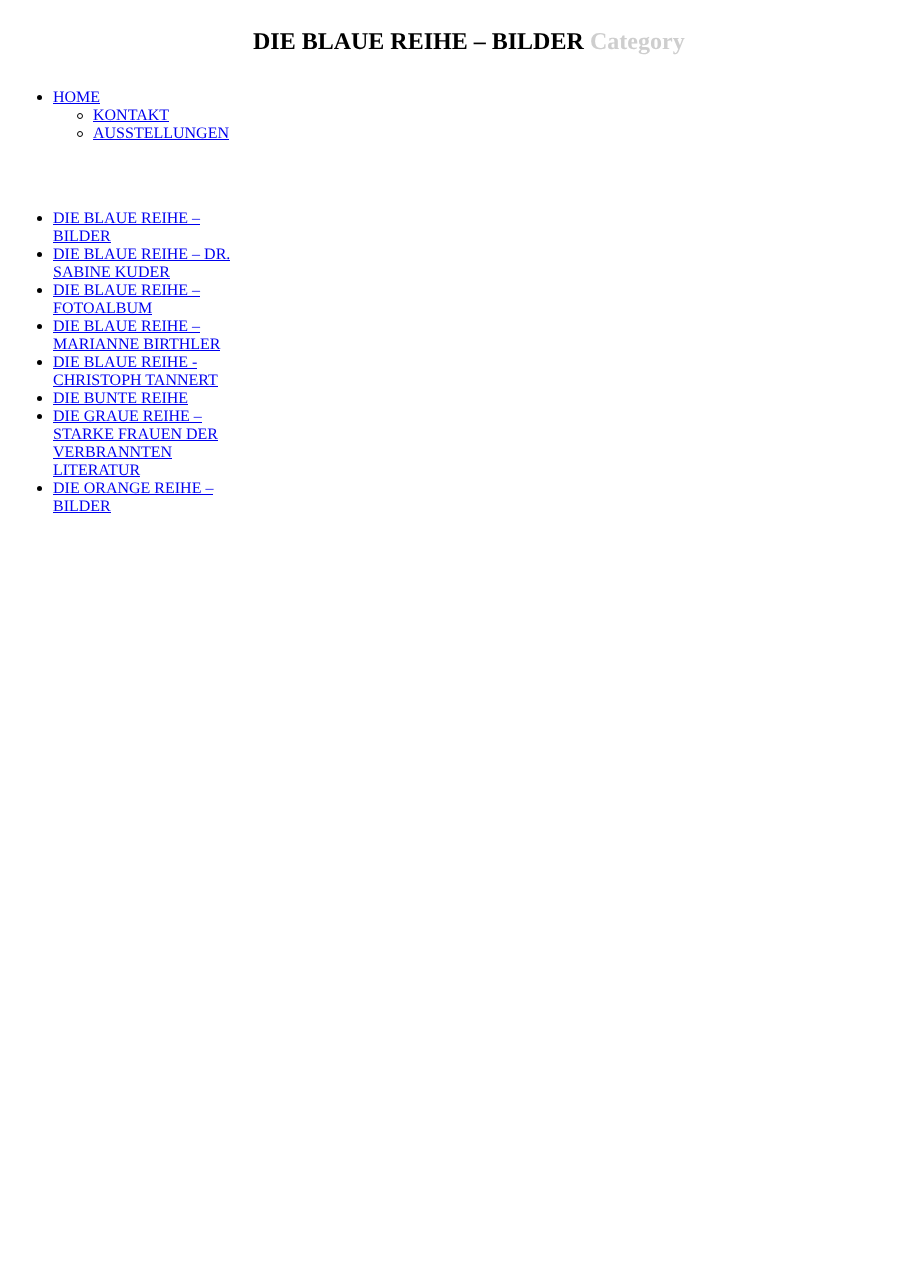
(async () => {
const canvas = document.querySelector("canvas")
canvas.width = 920
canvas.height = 1275
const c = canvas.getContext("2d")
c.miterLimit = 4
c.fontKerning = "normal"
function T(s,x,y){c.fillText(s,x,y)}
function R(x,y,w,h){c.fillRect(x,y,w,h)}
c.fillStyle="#fff"
R(0,0,920,1275)
c.font="bold 24px Liberation Serif"
c.fillStyle="#000"
T("DIE BLAUE REIHE – BILDER",253,49)
c.fillStyle="#cecece"
T("Category",590,49)
c.fillStyle="#000"
c.beginPath()
c.arc(39.5,97.5,2.5,0,7)
c.fill()
c.font="16px Liberation Serif"
c.fillStyle="#00e"
T("HOME",53,102)
R(53,103,47,1)
c.beginPath()
c.arc(80,116,2.5,0,7)
c.strokeStyle="#000"
c.stroke()
T("KONTAKT",93,120)
R(93,121,76,1)
c.beginPath()
c.arc(80,134,2.5,0,7)
c.stroke()
T("AUSSTELLUNGEN",93,138)
R(93,139,136,1)
c.fillStyle="#000"
c.beginPath()
c.arc(39.5,218.5,2.5,0,7)
c.fill()
c.fillStyle="#00e"
T("DIE BLAUE REIHE –",53,223)
R(53,224,147,1)
T("BILDER",53,241)
R(53,242,58,1)
c.fillStyle="#000"
c.beginPath()
c.arc(39.5,254.5,2.5,0,7)
c.fill()
c.fillStyle="#00e"
T("DIE BLAUE REIHE – DR.",53,259)
R(53,260,177,1)
T("SABINE KUDER",53,277)
R(53,278,117,1)
c.fillStyle="#000"
c.beginPath()
c.arc(39.5,290.5,2.5,0,7)
c.fill()
c.fillStyle="#00e"
T("DIE BLAUE REIHE –",53,295)
R(53,296,147,1)
T("FOTOALBUM",53,313)
R(53,314,99,1)
c.fillStyle="#000"
c.beginPath()
c.arc(39.5,326.5,2.5,0,7)
c.fill()
c.fillStyle="#00e"
T("DIE BLAUE REIHE –",53,331)
R(53,332,147,1)
T("MARIANNE BIRTHLER",53,349)
R(53,350,167,1)
c.fillStyle="#000"
c.beginPath()
c.arc(39.5,362.5,2.5,0,7)
c.fill()
c.fillStyle="#00e"
T("DIE BLAUE REIHE -",53,367)
R(53,368,144,1)
T("CHRISTOPH TANNERT",53,385)
R(53,386,165,1)
c.fillStyle="#000"
c.beginPath()
c.arc(39.5,398.5,2.5,0,7)
c.fill()
c.fillStyle="#00e"
T("DIE BUNTE REIHE",53,403)
R(53,404,135,1)
c.fillStyle="#000"
c.beginPath()
c.arc(39.5,416.5,2.5,0,7)
c.fill()
c.fillStyle="#00e"
T("DIE GRAUE REIHE –",53,421)
R(53,422,149,1)
T("STARKE FRAUEN DER",53,439)
R(53,440,165,1)
T("VERBRANNTEN",53,457)
R(53,458,119,1)
T("LITERATUR",53,475)
R(53,476,87,1)
c.fillStyle="#000"
c.beginPath()
c.arc(39.5,488.5,2.5,0,7)
c.fill()
c.fillStyle="#00e"
T("DIE ORANGE REIHE –",53,493)
R(53,494,160,1)
T("BILDER",53,511)
R(53,512,58,1)
})()
